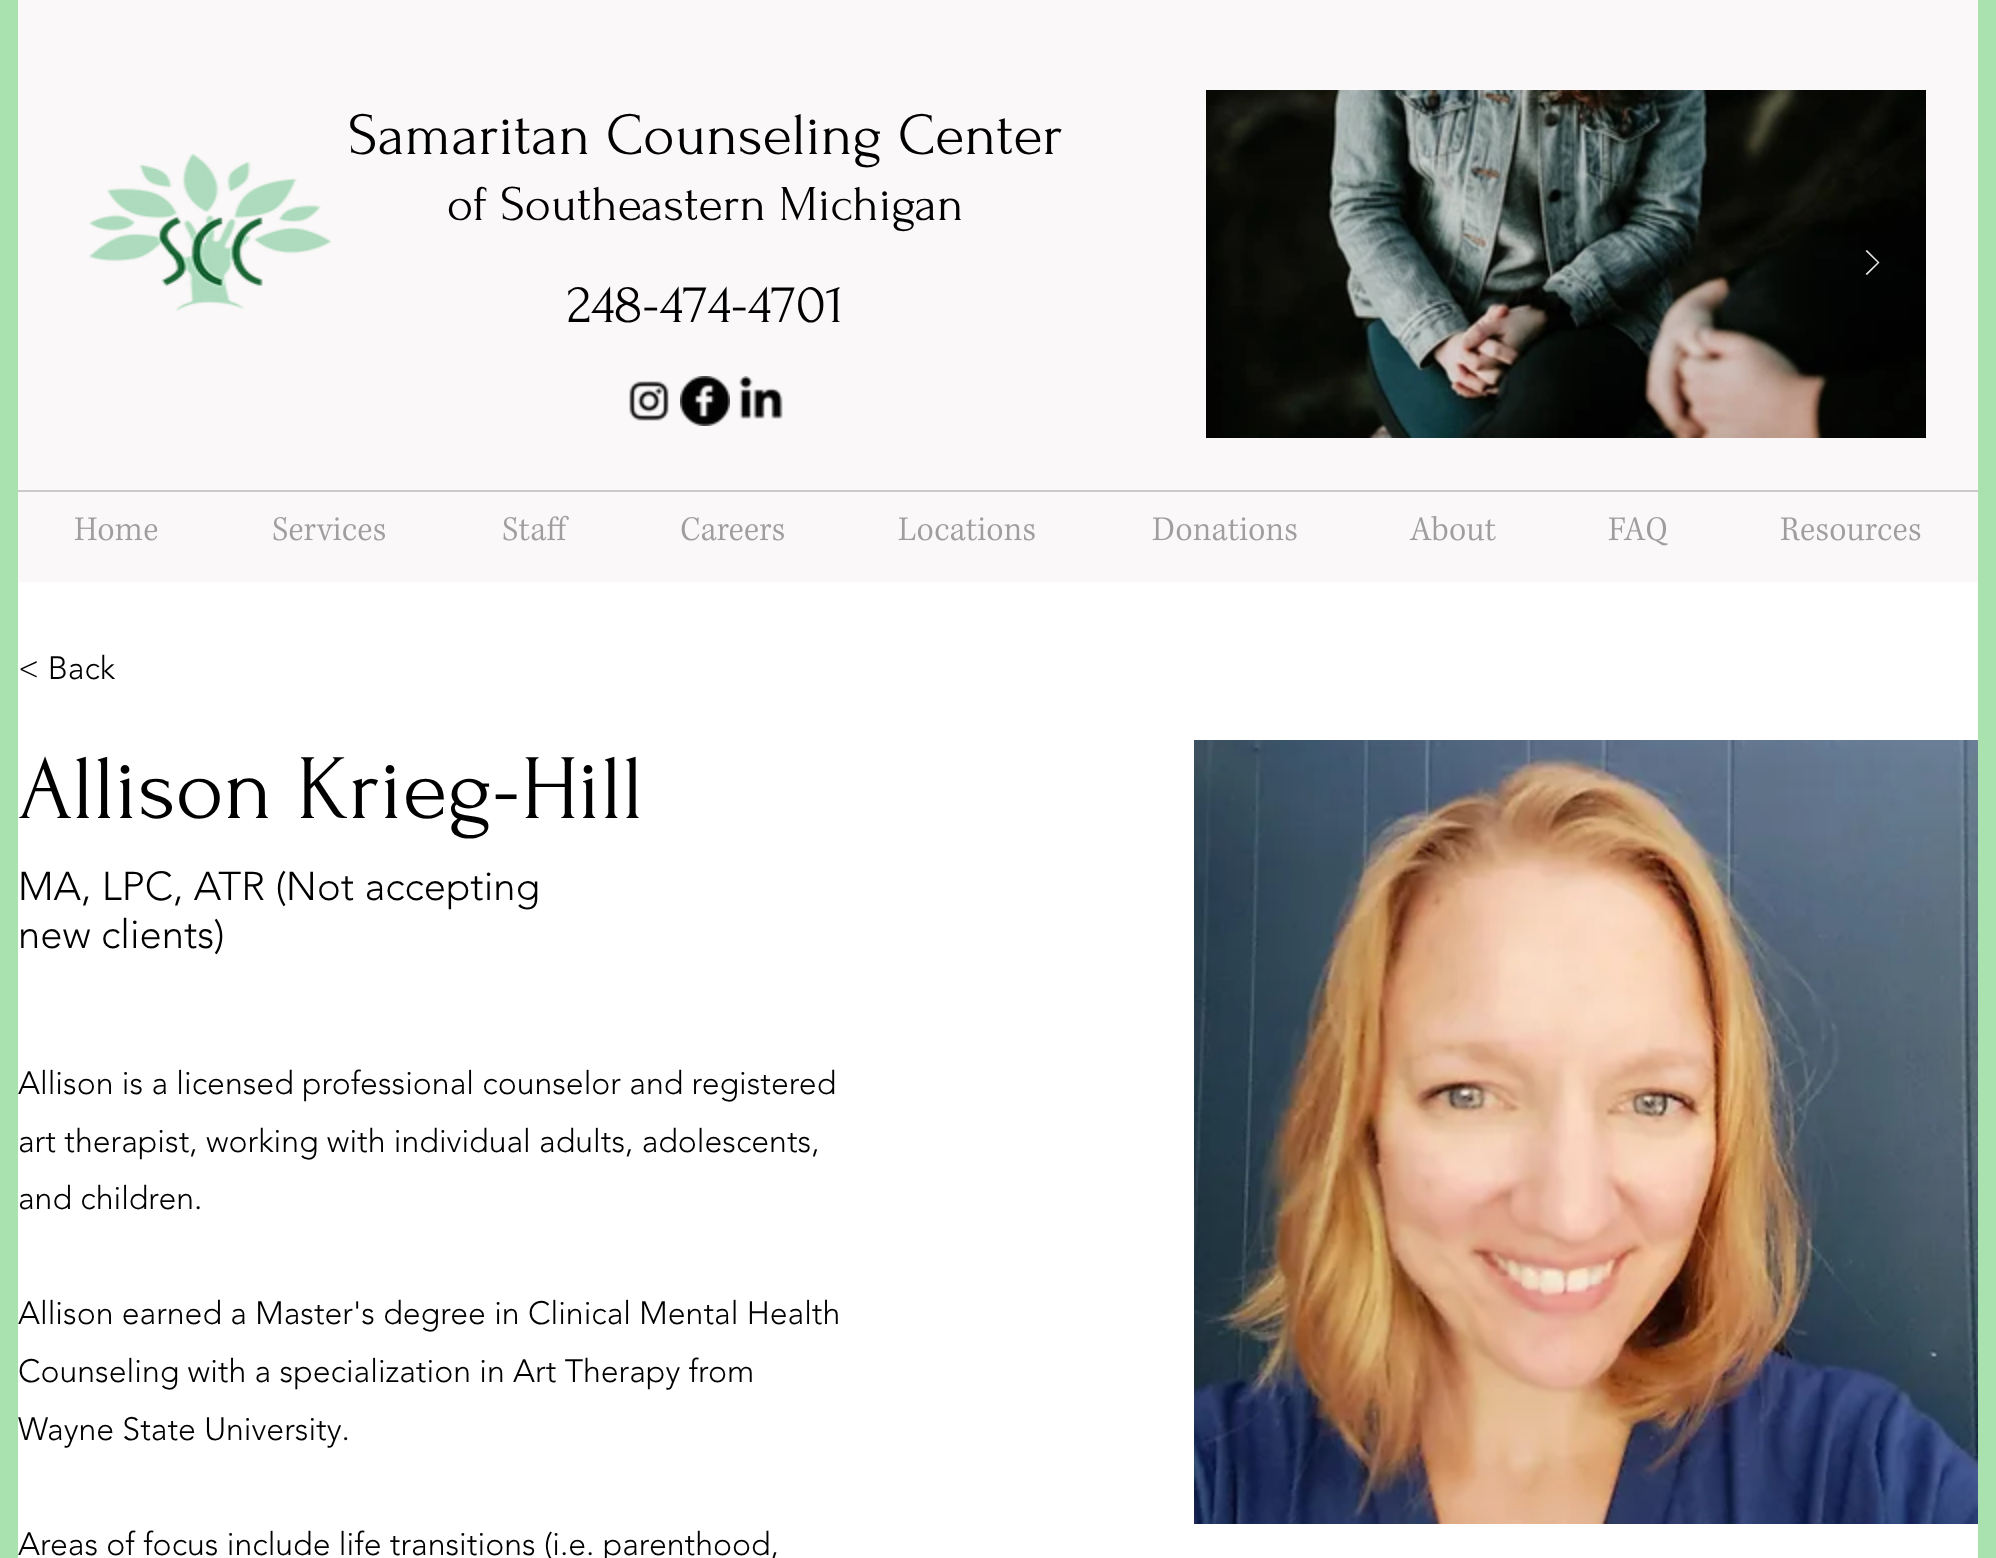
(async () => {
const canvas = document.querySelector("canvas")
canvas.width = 1996
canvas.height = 1558
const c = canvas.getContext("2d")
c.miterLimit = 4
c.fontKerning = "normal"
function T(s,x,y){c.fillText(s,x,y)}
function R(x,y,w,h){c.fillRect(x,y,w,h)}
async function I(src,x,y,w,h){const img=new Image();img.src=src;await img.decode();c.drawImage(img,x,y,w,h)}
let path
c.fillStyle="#a9e2ae"
R(0,0,1996,1558)
c.fillStyle="#faf8f8"
R(18,0,1960,582)
await I("1.png",89,153,243,158)
c.font="60px Forum"
c.fillStyle="#000"
T("Samaritan Counseling Center",348,154)
c.font="50px Forum"
T("of Southeastern Michigan",447,220)
await I("2.png",1206,90,720,348)
c.fillStyle="#e6e6e6"
path = new Path2D("M1865.5 251l1.5-1l12.5 12.5l-12.5 12.5l-1.5-1l12-11.5z")
c.fill(path)
c.font="56px Forum"
c.fillStyle="#000"
T("248-474-4701",567,322)
await I("3.png",629,381,40,40)
await I("4.png",680,376,50,50)
await I("5.png",739,376,44,43)
c.fillStyle="#cacaca"
R(18,490,1960,2)
await I("6.png",74,517,84,24)
await I("7.png",273,516,112,25)
await I("8.png",503,515,66,26)
await I("9.png",681,517,103,24)
await I("10.png",898,517,137,24)
await I("11.png",1152,517,145,24)
await I("12.png",1409,516,87,25)
await I("13.png",1608,517,60,29)
await I("14.png",1780,517,141,24)
c.fillStyle="#fff"
R(18,582,1960,976)
c.font="300 32px 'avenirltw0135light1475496'"
c.fillStyle="#000"
T("< Back",18,679)
c.font="92px Forum"
T("Allison Krieg-Hill",18,818)
c.font="300 40px 'avenirltw0135light1475496'"
T("MA, LPC, ATR (Not accepting",18,900)
T("new clients)",18,948)
c.font="300 32px 'avenirltw0135light1475496'"
T("Allison is a licensed professional counselor and registered",18,1094)
T("art therapist, working with individual adults, adolescents,",18,1152)
T("and children.",18,1209)
T("Allison earned a Master's degree in Clinical Mental Health",18,1324)
T("Counseling with a specialization in Art Therapy from",18,1382)
T("Wayne State University.",18,1440)
T("Areas of focus include life transitions (i.e. parenthood,",18,1555)
await I("15.png",1194,740,784,784)
})()
